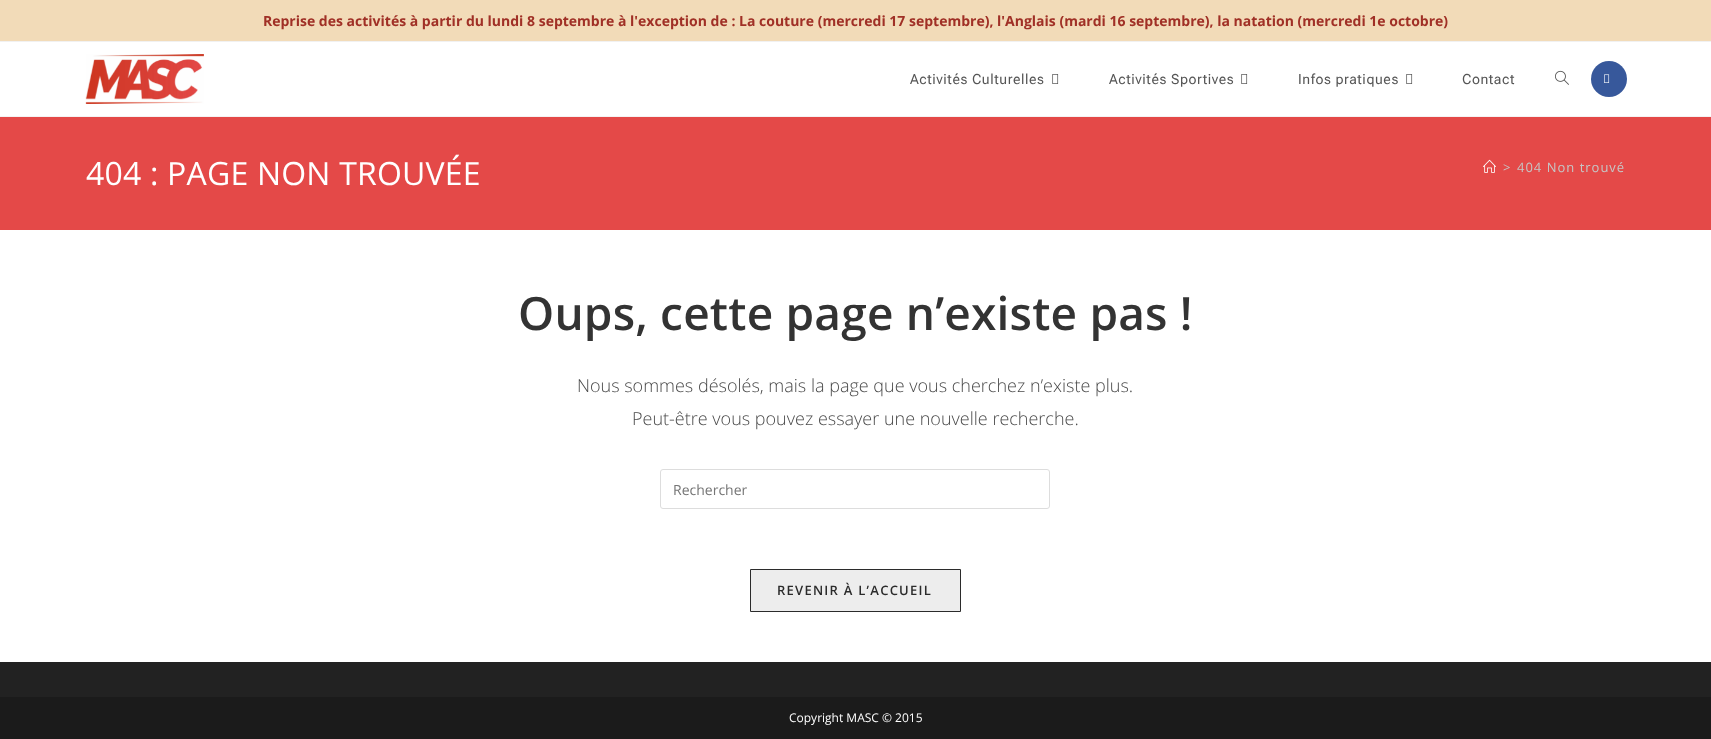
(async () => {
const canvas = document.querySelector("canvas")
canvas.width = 1711
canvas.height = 739
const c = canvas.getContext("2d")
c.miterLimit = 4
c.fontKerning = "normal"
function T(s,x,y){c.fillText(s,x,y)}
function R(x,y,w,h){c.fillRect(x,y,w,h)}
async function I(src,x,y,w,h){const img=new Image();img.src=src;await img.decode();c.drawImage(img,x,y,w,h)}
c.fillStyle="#222"
R(0,0,1711,739)
c.fillStyle="#f2dbb8"
R(0,0,1711,41)
c.fillStyle="#f1f1f1"
R(0,41,1711,1)
c.font="bold 14px Open Sans"
c.fillStyle="#a03026"
T("Reprise des activités à partir du lundi 8 septembre à l'exception de : La couture (mercredi 17 septembre), l'Anglais (mardi 16 septembre), la natation (mercredi 1e octobre)",263,26)
c.fillStyle="#fff"
R(0,42,1711,74)
c.fillStyle="#f4f3f3"
R(0,116,1711,1)
await I("1.png",85,54,119,50)
c.letterSpacing="0.6px"
c.font="14px Roboto Flex"
c.fillStyle="#555"
T("Activités Culturelles",910,84)
await I("2.png",1052,74,7,10)
T("Activités Sportives",1109,84)
await I("2.png",1241,74,7,10)
T("Infos pratiques",1298,84)
await I("2.png",1406,74,7,10)
T("Contact",1462,84)
await I("3.png",1555,70,14,15)
c.fillStyle="#37589b"
c.beginPath()
c.arc(1609,79,18,0,7)
c.fill()
await I("4.png",1604,74,6,9)
c.fillStyle="#fff"
R(0,230,1711,432)
c.fillStyle="#e44948"
R(0,117,1711,113)
c.letterSpacing="0.2px"
c.font="32px Open Sans"
c.fillStyle="#fff"
T("404 : PAGE NON TROUVÉE",86,185)
await I("5.png",1483,159,13,14)
c.letterSpacing="1px"
c.font="13px Open Sans"
c.fillStyle="#c6c6c6"
T(">",1503,172)
T("404 Non trouvé",1517,172)
c.letterSpacing="0.2px"
c.font="600 46px Open Sans"
c.fillStyle="#333"
T("Oups, cette page n’existe pas !",518,330)
c.letterSpacing="0px"
c.font="300 18px Open Sans"
c.fillStyle="#4a4a4a"
T("Nous sommes désolés, mais la page que vous cherchez n’existe plus.",577,392)
T("Peut-être vous pouvez essayer une nouvelle recherche.",632,425)
c.beginPath()
c.roundRect(660.5,469.5,389,39,2.5)
c.strokeStyle="#ddd"
c.stroke()
c.font="14px Open Sans"
c.fillStyle="#757575"
T("Rechercher",673,495)
c.fillStyle="#ededed"
c.beginPath()
c.rect(750.5,569.5,210,42)
c.fill()
c.strokeStyle="#2b2b2b"
c.stroke()
c.letterSpacing="1.25px"
c.font="600 13px Open Sans"
c.fillStyle="#2b2b2b"
T("REVENIR À L’ACCUEIL",777,595)
c.fillStyle="#1b1b1b"
R(0,697,1711,42)
c.letterSpacing="0px"
c.font="12px Open Sans"
c.fillStyle="#fff"
T("Copyright MASC © 2015",789,722)
})()
